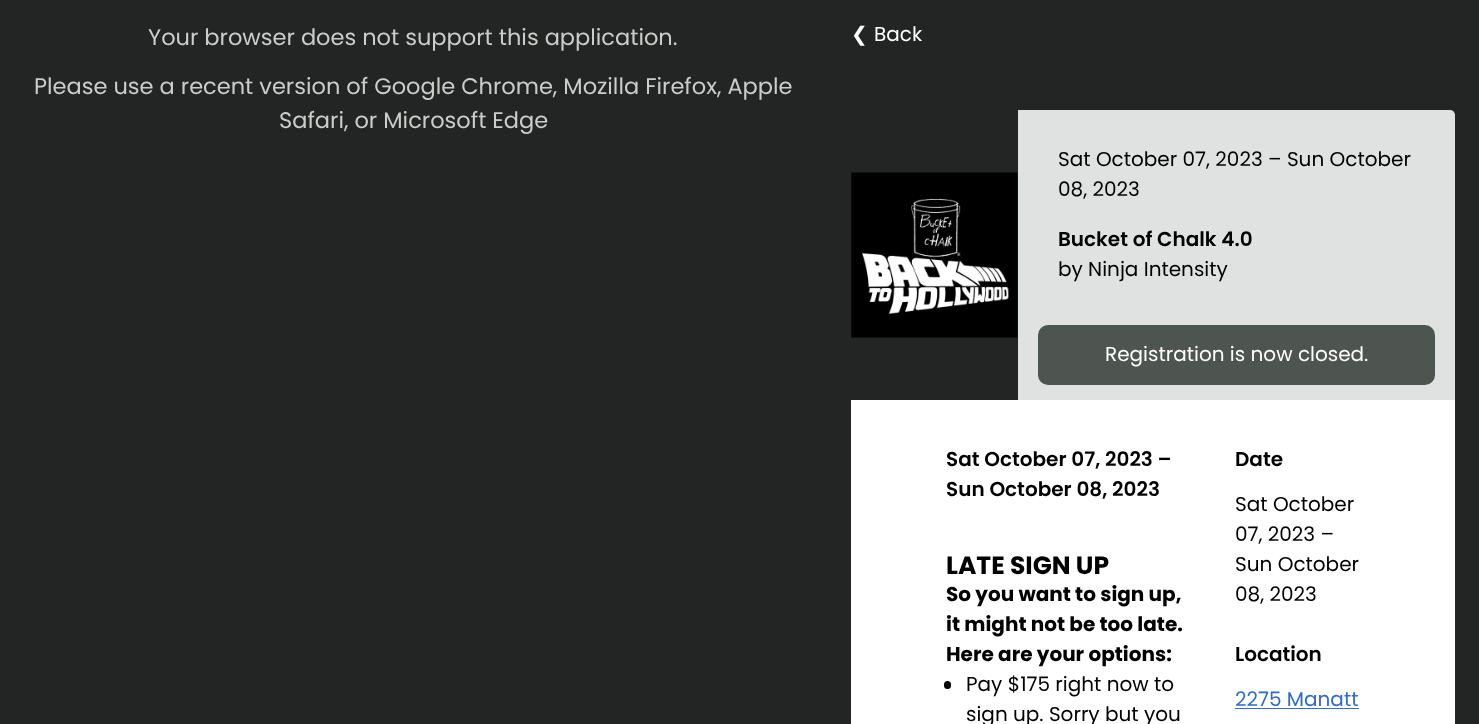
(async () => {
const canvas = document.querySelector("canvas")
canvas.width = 1479
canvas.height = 724
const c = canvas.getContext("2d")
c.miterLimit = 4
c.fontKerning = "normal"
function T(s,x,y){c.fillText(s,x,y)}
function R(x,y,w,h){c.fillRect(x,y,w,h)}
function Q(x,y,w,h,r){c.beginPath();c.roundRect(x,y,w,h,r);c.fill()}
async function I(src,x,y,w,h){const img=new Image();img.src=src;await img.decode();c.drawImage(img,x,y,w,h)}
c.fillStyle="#222523"
R(0,0,1479,724)
c.font="22.5px Poppins"
c.fillStyle="#cacecb"
T("Your browser does not support this application.",148,45)
T("Please use a recent version of Google Chrome, Mozilla Firefox, Apple",34,94)
T("Safari, or Microsoft Edge",279,128)
c.font="20px DejaVu Sans"
c.fillStyle="#fff"
T("❮",851,41)
c.font="20px Poppins"
T("Back",874,41)
await I("1.png",851,172,167,166)
c.fillStyle="#dfe2e0"
c.beginPath()
c.roundRect(1018,110,437,290,[0,5,0,0])
c.fill()
c.fillStyle="#000"
T("Sat October 07, 2023 – Sun October",1058,166)
T("08, 2023",1058,196)
c.font="600 20px Poppins"
T("Bucket of Chalk 4.0",1058,246)
c.font="20px Poppins"
T("by Ninja Intensity",1058,276)
c.fillStyle="#4e5550"
Q(1038,325,397,60,10)
c.fillStyle="#fff"
T("Registration is now closed.",1105,361)
R(851,400,604,324)
c.font="600 20px Poppins"
c.fillStyle="#000"
T("Sat October 07, 2023 –",946,466)
T("Sun October 08, 2023",946,496)
c.font="bold 25px Poppins"
T("LATE SIGN UP",946,574)
c.font="bold 20px Poppins"
T("So you want to sign up,",946,601)
T("it might not be too late.",946,631)
T("Here are your options:",946,661)
Q(944,681,7,8,3.5)
c.font="20px Poppins"
T("Pay $175 right now to",966,691)
T("sign up. Sorry but you",966,721)
c.font="600 20px Poppins"
T("Date",1235,466)
c.font="20px Poppins"
T("Sat October",1235,511)
T("07, 2023 –",1235,541)
T("Sun October",1235,571)
T("08, 2023",1235,601)
c.font="600 20px Poppins"
T("Location",1235,661)
c.font="20px Poppins"
c.fillStyle="#336cc1"
T("2275 Manatt",1235,706)
R(1235,708,124,1)
})()
